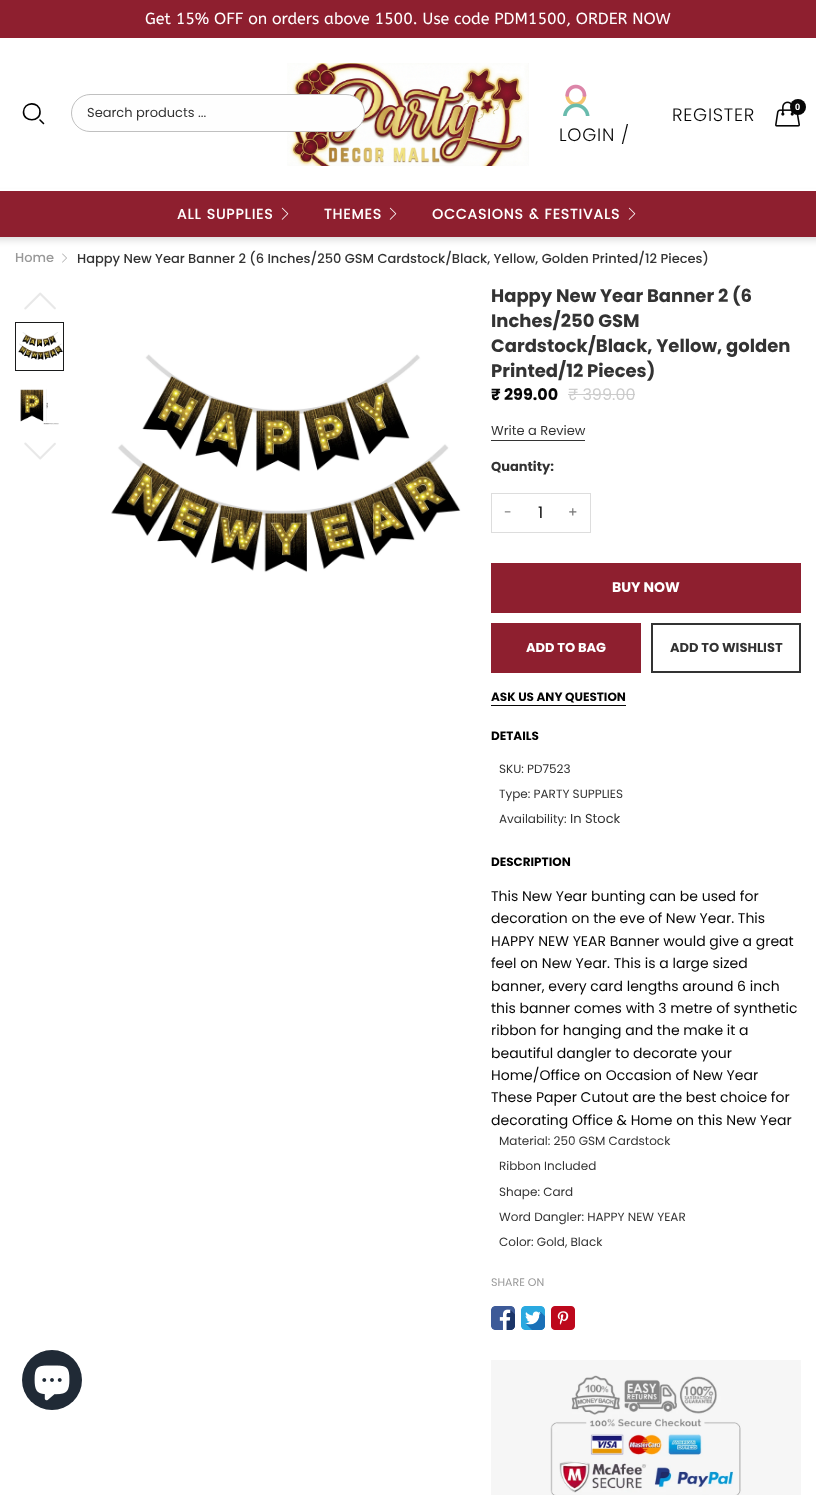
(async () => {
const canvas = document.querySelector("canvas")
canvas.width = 816
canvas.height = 1495
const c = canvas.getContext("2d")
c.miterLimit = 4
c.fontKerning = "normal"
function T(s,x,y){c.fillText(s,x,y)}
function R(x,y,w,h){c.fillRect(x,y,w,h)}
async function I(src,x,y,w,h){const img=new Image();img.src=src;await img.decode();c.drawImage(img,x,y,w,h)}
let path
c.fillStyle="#fff"
R(0,0,816,1495)
c.fillStyle="#8e1f2f"
R(0,0,816,38)
c.font="16px ABeeZee"
c.fillStyle="#fff"
T("Get 15% OFF on orders above 1500. Use code PDM1500, ORDER NOW",145,24)
c.fillStyle="#00000024"
c.filter="blur(3.5px)"
c.beginPath()
c.rect(-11,194,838,46)
c.fill()
c.filter="none"
c.fillStyle="#fff"
R(0,189,816,2)
path = new Path2D("M23.5 112c0-10.5 16-11 16.5-.5c.5 11-16.5 11-16.5 .5zm16.5 8l3.5 3.5")
c.strokeStyle="#000"
c.lineWidth=1.6
c.lineCap="round"
c.lineJoin="round"
c.stroke(path)
await I("1.png",287,63,242,103)
c.fillStyle="#fefefe"
c.beginPath()
c.roundRect(71.5,94.5,293,37,18.5)
c.fill()
c.strokeStyle="#c0c0c0"
c.lineWidth=1
c.lineJoin="miter"
c.stroke()
c.font="13px Poppins"
c.fillStyle="#333"
T("Search products ...",87,117)
await I("2.png",775,101,25,26)
c.fillStyle="#060606"
c.beginPath()
c.arc(798,107,8,0,7)
c.fill()
c.letterSpacing="0.75px"
c.font="bold 9px Open Sans"
c.fillStyle="#fff"
T("0",795,110)
c.font="300 18px Poppins"
c.fillStyle="#060606"
T("REGISTER",672,121)
await I("3.png",563,84,27,32)
T("LOGIN /",559,141)
c.fillStyle="#8e1f2f"
R(0,191,816,46)
c.letterSpacing="1px"
c.font="bold 14px 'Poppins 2'"
c.fillStyle="#fff"
T("ALL SUPPLIES",177,219)
await I("4.png",281,207,8,13)
T("THEMES",324,219)
await I("4.png",389,207,8,13)
T("OCCASIONS & FESTIVALS",432,219)
await I("4.png",628,207,8,13)
c.letterSpacing="0px"
c.font="500 13px Poppins"
c.fillStyle="#999"
T("Home",15,262)
await I("5.png",62,253,5,10)
c.fillStyle="#333"
T("Happy New Year Banner 2 (6 Inches/250 GSM Cardstock/Black, Yellow, Golden Printed/12 Pieces)",77,263)
await I("6.png",24,292,32,18)
c.strokeStyle="#1a1b1c"
c.strokeRect(15.5,322.5,48,48)
await I("7.png",18,332,45,28)
await I("8.png",20,389,39,36)
await I("9.png",24,442,32,18)
await I("10.png",111,354,350,219)
c.font="bold 18px Poppins"
T("Happy New Year Banner 2 (6",491,302)
T("Inches/250 GSM",491,327)
T("Cardstock/Black, Yellow, golden",491,352)
T("Printed/12 Pieces)",491,377)
c.font="bold 16px Poppins"
c.fillStyle="#060606"
T("₹ 299.00",491,400)
c.font="16px Poppins"
c.fillStyle="#ccc"
T("₹ 399.00",568,400)
R(568,394,67,1)
c.font="13px Poppins"
c.fillStyle="#333"
T("Write a Review",491,435)
R(491,440,94,1)
c.font="bold 13px Poppins"
T("Quantity:",491,471)
c.strokeStyle="#ddd"
c.strokeRect(491.5,493.5,99,39)
c.font="14px Poppins"
c.fillStyle="#777"
T("-",504,517)
c.font="16px Poppins"
c.fillStyle="#060606"
T("1",538,518)
c.font="14px Poppins"
c.fillStyle="#777"
T("+",568,517)
c.fillStyle="#8e1f2f"
R(491,563,310,50)
c.font="bold 14px Poppins"
c.fillStyle="#fff"
T("BUY NOW",612,592)
c.fillStyle="#8e1f2f"
R(491,623,150,50)
c.font="bold 13px Poppins"
c.fillStyle="#fff"
T("ADD TO BAG",526,652)
c.strokeStyle="#333"
c.lineWidth=2
c.strokeRect(652,624,148,48)
c.fillStyle="#333"
T("ADD TO WISHLIST",670,652)
c.font="bold 12px Poppins"
c.fillStyle="#060606"
T("ASK US ANY QUESTION",491,701)
R(491,705,135,1)
c.fillStyle="#000"
T("DETAILS",491,740)
c.font="12px Poppins"
c.fillStyle="#333"
T("SKU: PD7523",499,773)
T("Type: PARTY SUPPLIES",499,798)
T("Availability:",499,823)
c.font="13px Poppins"
T("In Stock",570,823)
c.font="bold 12px Poppins"
c.fillStyle="#000"
T("DESCRIPTION",491,866)
c.font="14px Poppins"
c.fillStyle="#060606"
T("This New Year bunting can be used for",491,901)
T("decoration on the eve of New Year. This",491,923)
T("HAPPY NEW YEAR Banner would give a great",491,946)
T("feel on New Year. This is a large sized",491,968)
T("banner, every card lengths around 6 inch",491,991)
T("this banner comes with 3 metre of synthetic",491,1013)
T("ribbon for hanging and the make it a",491,1035)
T("beautiful dangler to decorate your",491,1058)
T("Home/Office on Occasion of New Year",491,1080)
T("These Paper Cutout are the best choice for",491,1102)
T("decorating Office & Home on this New Year",491,1125)
c.font="12px Poppins"
c.fillStyle="#333"
T("Material: 250 GSM Cardstock",499,1145)
T("Ribbon Included",499,1170)
T("Shape: Card",499,1196)
T("Word Dangler: HAPPY NEW YEAR",499,1221)
T("Color: Gold, Black",499,1246)
c.font="11px Poppins"
c.fillStyle="#999"
T("SHARE ON",491,1286)
await I("11.png",491,1306,24,24)
await I("12.png",521,1306,24,24)
await I("13.png",551,1306,24,24)
await I("14.png",491,1360,310,135)
c.fillStyle="#202a36"
c.beginPath()
c.arc(52,1380,30,0,7)
c.fill()
await I("15.png",34,1365,36,36)
})()
